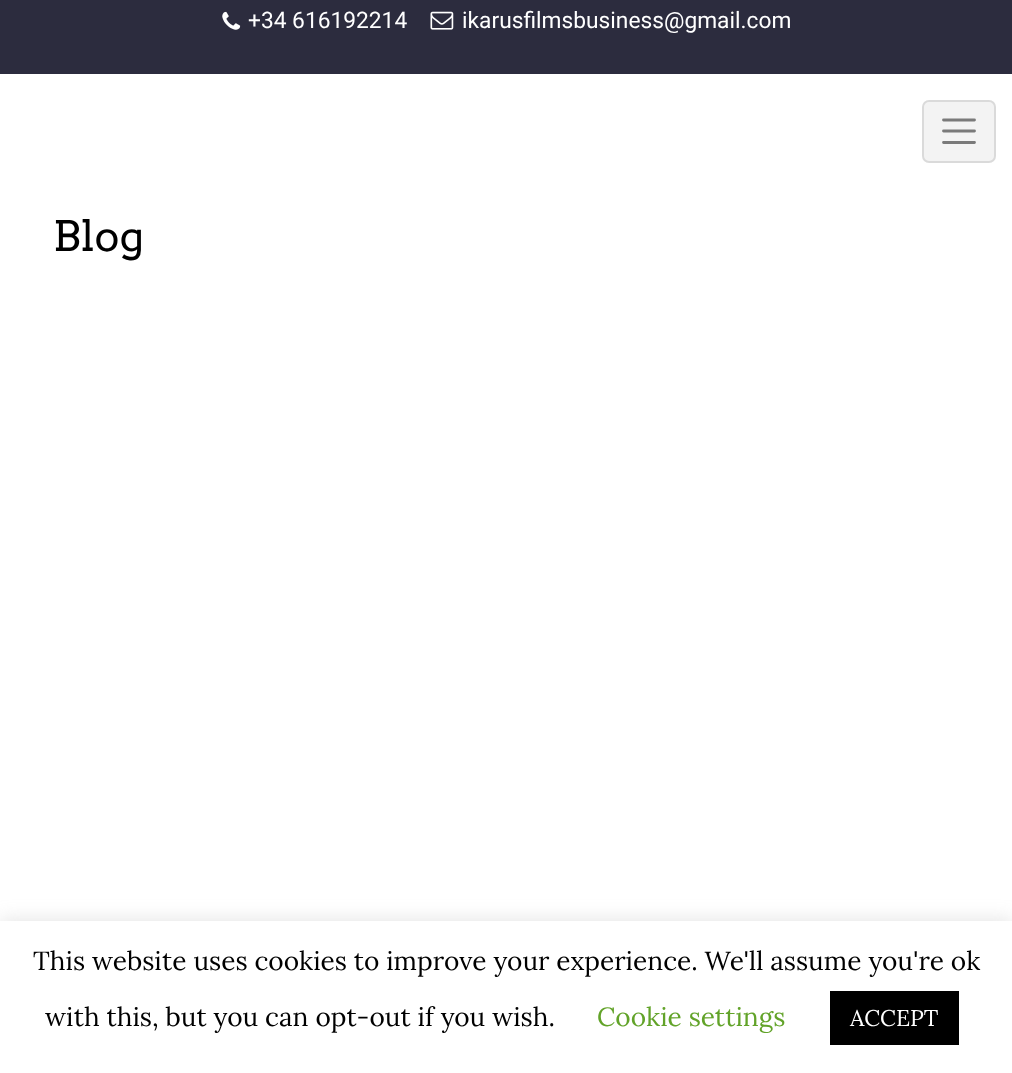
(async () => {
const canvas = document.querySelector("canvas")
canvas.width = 1012
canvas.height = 1073
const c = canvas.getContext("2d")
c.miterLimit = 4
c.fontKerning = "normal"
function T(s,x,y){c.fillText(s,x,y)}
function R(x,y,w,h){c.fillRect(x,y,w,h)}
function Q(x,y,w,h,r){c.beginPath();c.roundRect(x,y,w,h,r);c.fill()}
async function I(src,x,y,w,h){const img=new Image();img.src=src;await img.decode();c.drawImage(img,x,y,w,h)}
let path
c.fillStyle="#fff"
R(0,0,1012,1073)
c.fillStyle="#2c2c3e"
R(0,0,1012,74)
await I("1.png",222,11,19,19)
c.font="22.75px Roboto"
c.fillStyle="#fff"
T("+34 616192214",248,28)
await I("2.png",430,11,24,19)
T("ikarusfilmsbusiness@gmail.com",462,28)
c.fillStyle="#f3f3f3"
Q(922,100,74,63,7)
c.beginPath()
c.roundRect(923,101,72,61,6)
c.strokeStyle="#0000001a"
c.lineWidth=2
c.stroke()
path = new Path2D("M943.5 120h31m-31 11h31m-31 11.5h31")
c.strokeStyle="#7a7a7a"
c.lineWidth=2.8
c.lineCap="round"
c.stroke(path)
c.font="42px Arvo"
c.fillStyle="#000"
T("Blog",53,251)
c.fillStyle="#acabab4d"
c.filter="blur(9px)"
c.beginPath()
c.rect(0,919,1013,154)
c.fill()
c.filter="none"
c.fillStyle="#fff"
R(0,921,1012,152)
c.font="26.25px Lora"
c.fillStyle="#000"
T("This website uses cookies to improve your experience. We'll assume you're ok",33,970)
T("with this, but you can opt-out if you wish.",45,1026)
c.fillStyle="#62a329"
T("Cookie settings",597,1026)
c.fillStyle="#000"
R(830,991,129,54)
c.font="22.75px Lora"
c.fillStyle="#fff"
T("ACCEPT",850,1026)
})()
